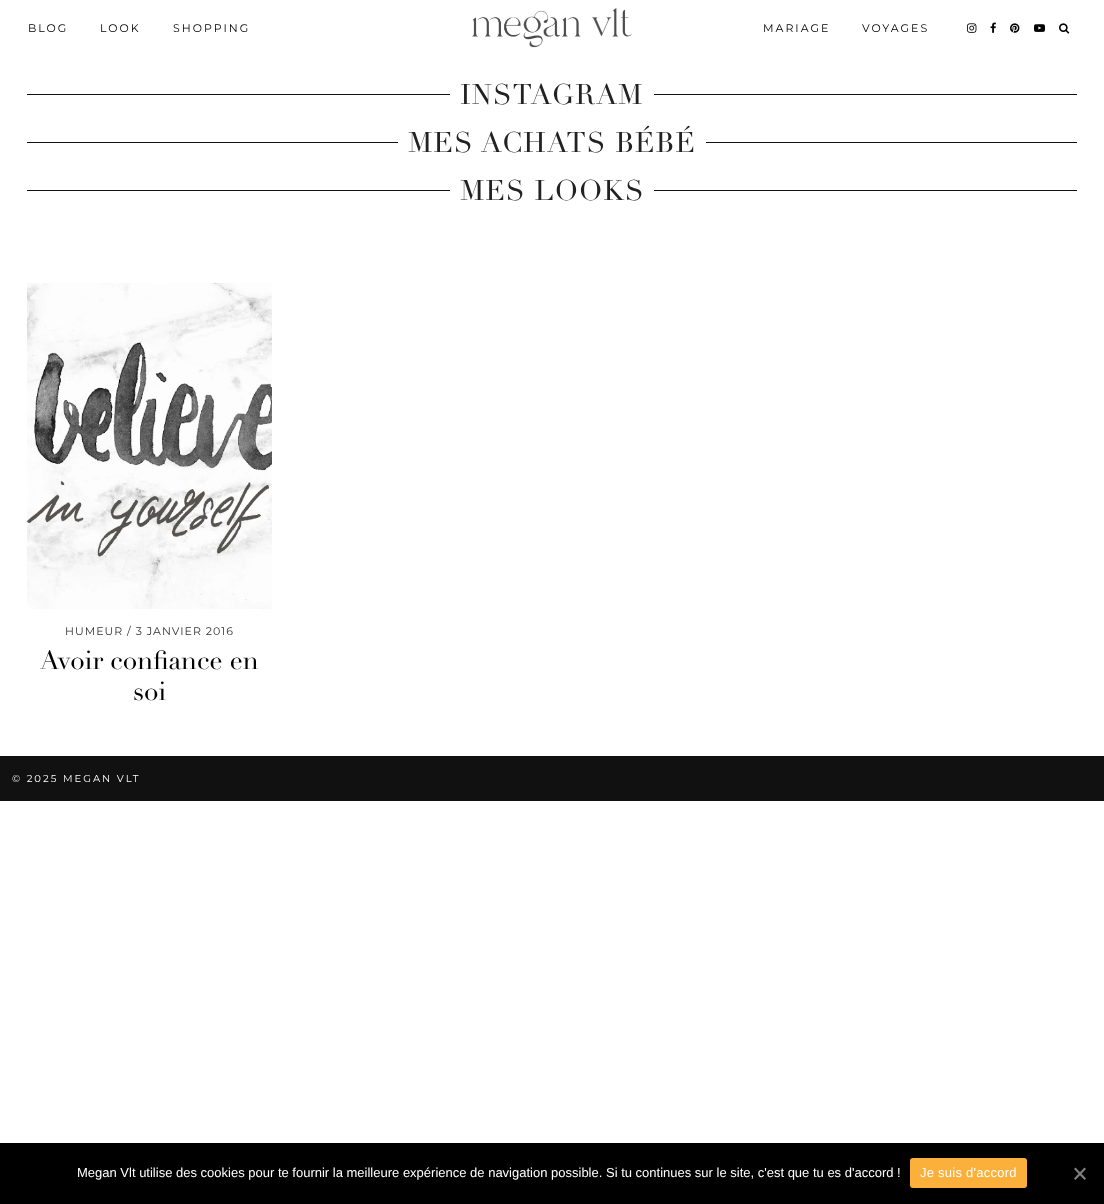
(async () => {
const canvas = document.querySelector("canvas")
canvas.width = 1104
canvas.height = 1204
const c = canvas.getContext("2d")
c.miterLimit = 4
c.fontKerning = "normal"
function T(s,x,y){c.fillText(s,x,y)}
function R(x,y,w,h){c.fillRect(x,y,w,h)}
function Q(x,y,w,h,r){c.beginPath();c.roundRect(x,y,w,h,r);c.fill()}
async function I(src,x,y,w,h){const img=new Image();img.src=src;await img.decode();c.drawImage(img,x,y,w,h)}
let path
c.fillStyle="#fff"
R(0,0,1104,1204)
c.letterSpacing="2px"
c.font="11px Montserrat"
c.fillStyle="#000"
T("BLOG",28,32)
T("LOOK",100,32)
T("SHOPPING",173,32)
await I("1.png",472,8,160,40)
T("MARIAGE",763,32)
T("VOYAGES",862,32)
await I("2.png",967,23,10,10)
await I("3.png",990,22,6,11)
await I("4.png",1010,23,10,10)
await I("5.png",1034,24,11,8)
await I("6.png",1059,23,11,11)
c.fillStyle="#111"
R(27,94,1050,1)
c.fillStyle="#fff"
R(450,94,204,1)
c.letterSpacing="1px"
c.font="28px Didot"
c.fillStyle="#222"
T("INSTAGRAM",460,104)
c.fillStyle="#111"
R(27,142,1050,1)
c.fillStyle="#fff"
R(398,142,308,1)
c.fillStyle="#222"
T("MES ACHATS BÉBÉ",408,152)
c.fillStyle="#111"
R(27,190,1050,1)
c.fillStyle="#fff"
R(450,190,204,1)
c.fillStyle="#222"
T("MES LOOKS",460,200)
await I("7.png",27,283,245,326)
c.font="11px Montserrat"
c.fillStyle="#333"
T("HUMEUR / 3 JANVIER 2016",65,635)
c.letterSpacing="0px"
c.font="26px Didot"
c.fillStyle="#000"
T("Avoir confiance en",40,669)
T("soi",133,700)
c.fillStyle="#111"
R(0,756,1104,45)
c.letterSpacing="2px"
c.font="10px Montserrat"
c.fillStyle="#fff"
T("© 2025 MEGAN VLT",12,782)
c.fillStyle="#000"
R(0,1143,1104,61)
c.letterSpacing="0px"
c.font="13px Liberation Sans"
c.fillStyle="#fff"
T("Megan Vlt utilise des cookies pour te fournir la meilleure expérience de navigation possible. Si tu continues sur le site, c'est que tu es d'accord !",77,1177)
c.fillStyle="#fbb03b"
Q(910,1158,117,30,3)
c.letterSpacing="0.25px"
c.fillStyle="#fff"
T("Je suis d'accord",920,1177)
c.fillStyle="#808080"
path = new Path2D("M1084.5 1167.5l1.5 1.5l-10.5 11l-1.5-1.5z")
c.fill(path)
path = new Path2D("M1074 1169l1.5-1.5l10.5 11l-1.5 1.5z")
c.fill(path)
})()
